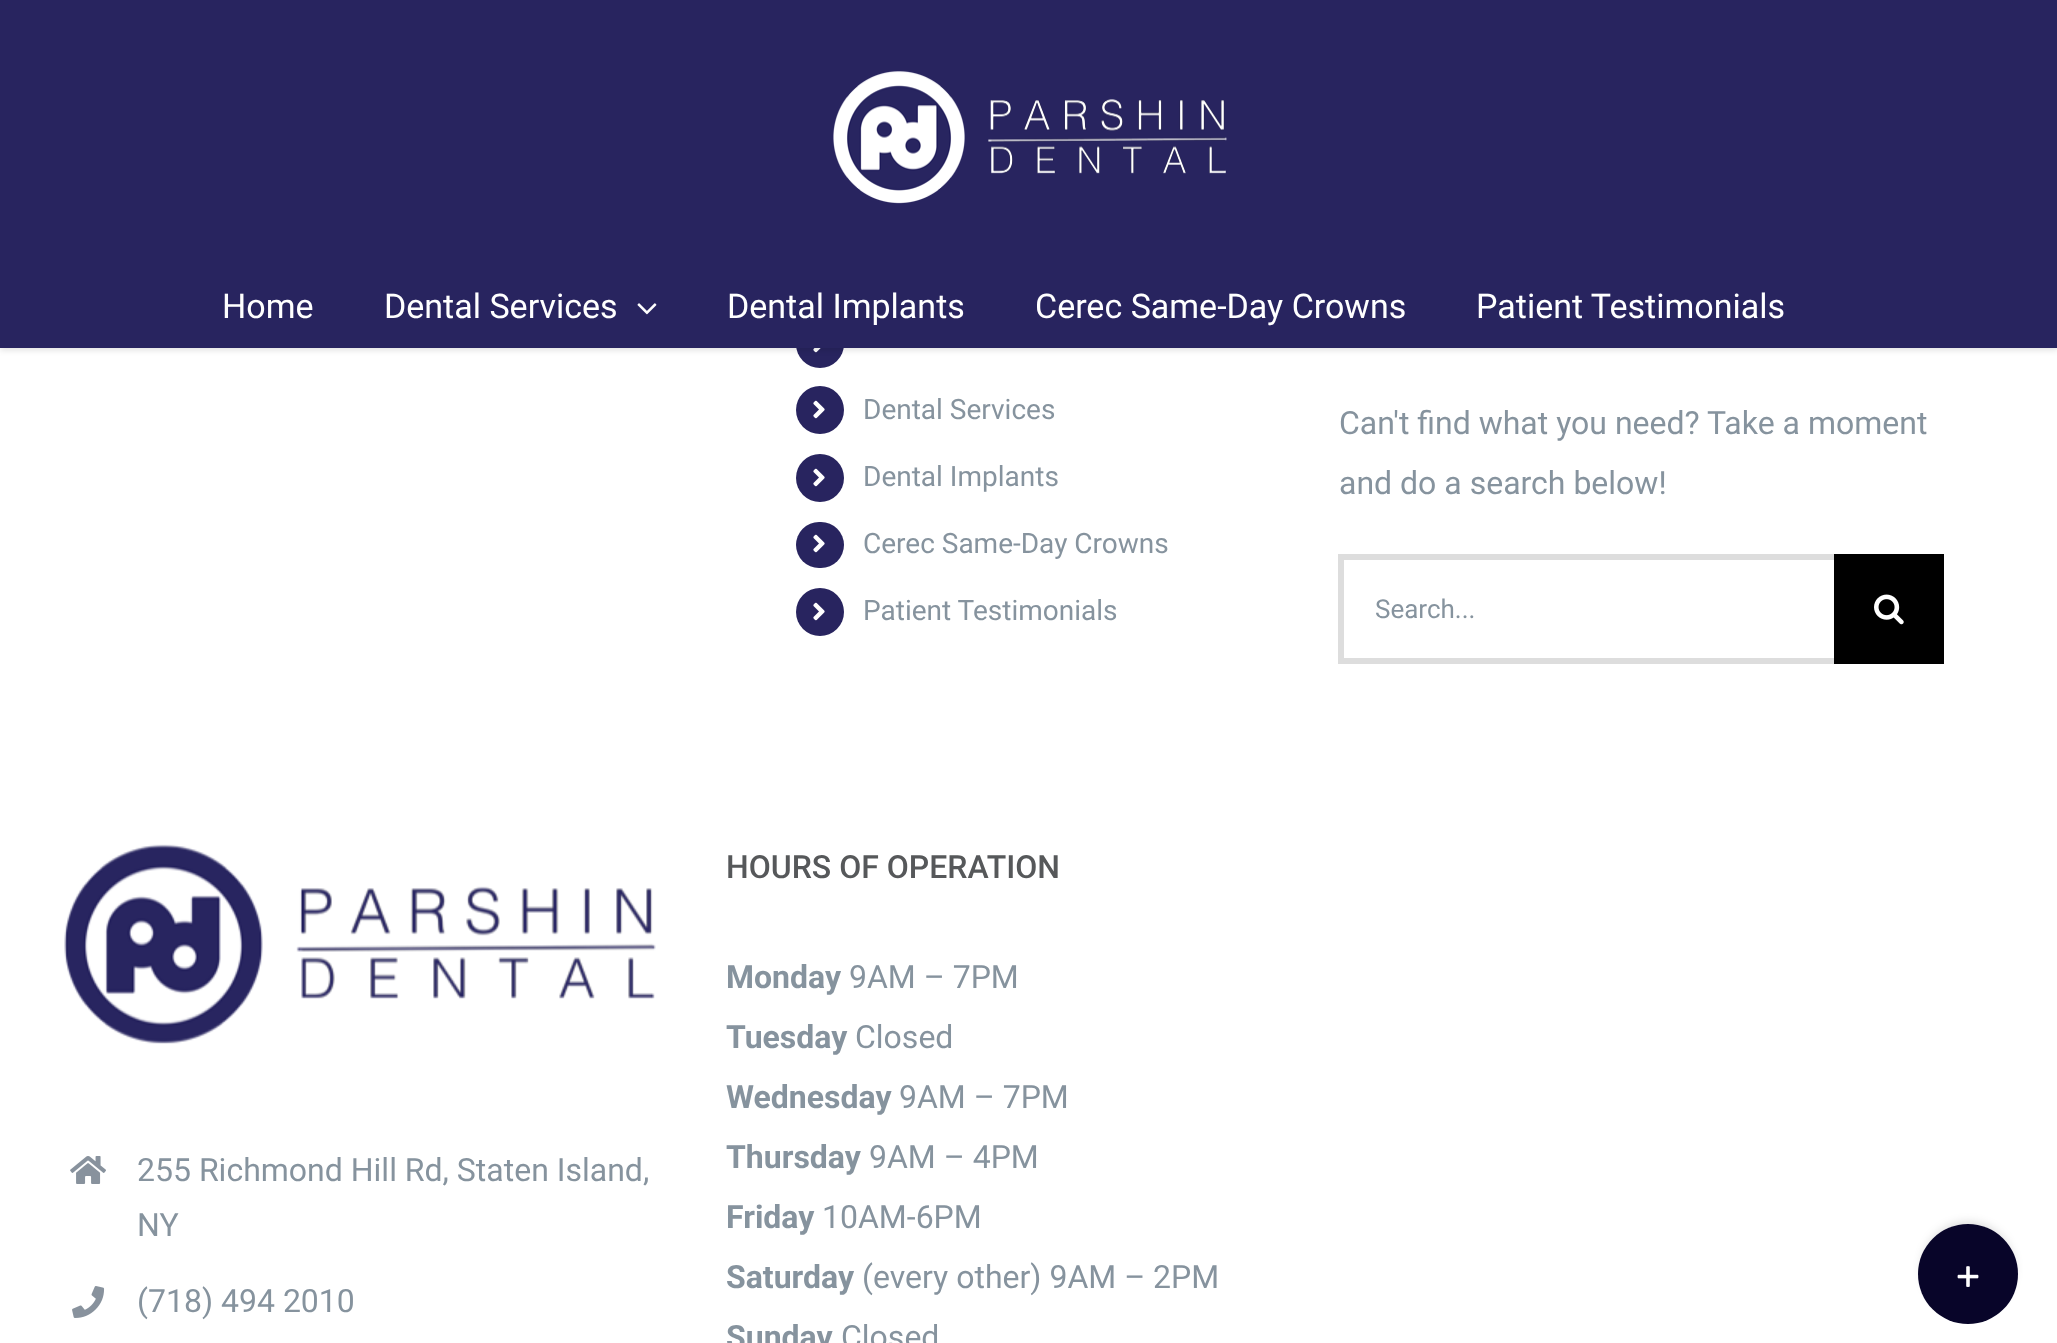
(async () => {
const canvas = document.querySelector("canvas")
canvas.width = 2057
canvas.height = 1343
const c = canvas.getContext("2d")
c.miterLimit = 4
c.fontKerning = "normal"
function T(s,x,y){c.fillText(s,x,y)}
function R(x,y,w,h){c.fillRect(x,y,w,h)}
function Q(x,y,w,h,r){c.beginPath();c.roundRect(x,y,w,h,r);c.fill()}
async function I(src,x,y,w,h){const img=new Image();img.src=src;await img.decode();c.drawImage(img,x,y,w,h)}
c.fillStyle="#fff"
R(0,0,2057,1343)
c.fillStyle="#28245f"
c.beginPath()
c.arc(820,344,24,0,7)
c.fill()
await I("3.png",813,348,8,5)
c.fillStyle="#0000001f"
c.filter="blur(3px)"
c.beginPath()
c.rect(0,2,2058,348)
c.fill()
c.filter="none"
c.fillStyle="#28245f"
R(0,0,2057,348)
await I("1.png",833,71,394,133)
c.font="34px Roboto"
c.fillStyle="#fff"
T("Home",222,318)
T("Dental Services",384,318)
await I("2.png",637,303,20,12)
T("Dental Implants",727,318)
T("Cerec Same-Day Crowns",1035,318)
T("Patient Testimonials",1476,318)
c.fillStyle="#28245f"
c.beginPath()
c.arc(820,410,24,0,7)
c.fill()
await I("4.png",813,400,12,19)
c.font="28px Roboto"
c.fillStyle="#86939e"
T("Dental Services",863,419)
c.fillStyle="#28245f"
c.beginPath()
c.arc(820,478,24,0,7)
c.fill()
await I("4.png",813,468,12,19)
c.fillStyle="#86939e"
T("Dental Implants",863,486)
c.fillStyle="#28245f"
Q(796,522,48,46,23)
await I("4.png",813,534,12,19)
c.fillStyle="#86939e"
T("Cerec Same-Day Crowns",863,553)
c.fillStyle="#28245f"
c.beginPath()
c.arc(820,612,24,0,7)
c.fill()
await I("4.png",813,602,12,19)
c.fillStyle="#86939e"
T("Patient Testimonials",863,620)
c.font="32px Roboto"
T("Can't find what you need? Take a moment",1339,434)
T("and do a search below!",1339,494)
c.fillStyle="#ddd"
R(1338,554,496,6)
R(1338,658,496,6)
R(1338,554,6,110)
c.font="26px Roboto"
c.fillStyle="#86939e"
T("Search...",1375,618)
c.fillStyle="#000"
R(1834,554,110,110)
await I("5.png",1874,594,30,31)
await I("6.png",64,844,592,200)
await I("7.png",70,1156,36,28)
c.font="32px Roboto"
c.fillStyle="#86939e"
T("255 Richmond Hill Rd, Staten Island,",137,1181)
T("NY",137,1236)
await I("8.png",72,1286,33,32)
T("(718) 494 2010",137,1312)
c.font="500 32px Roboto"
c.fillStyle="#56585a"
T("HOURS OF OPERATION",726,878)
c.font="bold 32px Roboto"
c.fillStyle="#86939e"
T("Monday",726,988)
c.font="32px Roboto"
T("9AM – 7PM",849,988)
c.font="bold 32px Roboto"
T("Tuesday",726,1048)
c.font="32px Roboto"
T("Closed",855,1048)
c.font="bold 32px Roboto"
T("Wednesday",726,1108)
c.font="32px Roboto"
T("9AM – 7PM",899,1108)
c.font="bold 32px Roboto"
T("Thursday",726,1168)
c.font="32px Roboto"
T("9AM – 4PM",869,1168)
c.font="bold 32px Roboto"
T("Friday",726,1228)
c.font="32px Roboto"
T("10AM-6PM",822,1228)
c.font="bold 32px Roboto"
T("Saturday",726,1288)
c.font="32px Roboto"
T("(every other) 9AM – 2PM",862,1288)
c.font="bold 32px Roboto"
T("Sunday",726,1348)
c.font="32px Roboto"
T("Closed",841,1348)
c.fillStyle="#00000024"
c.filter="blur(5px)"
c.beginPath()
c.roundRect(1922,1222,92,92,46)
c.fill()
c.filter="none"
c.fillStyle="#080529"
c.beginPath()
c.arc(1968,1274,50,0,7)
c.fill()
await I("9.png",1957,1266,22,21)
})()
